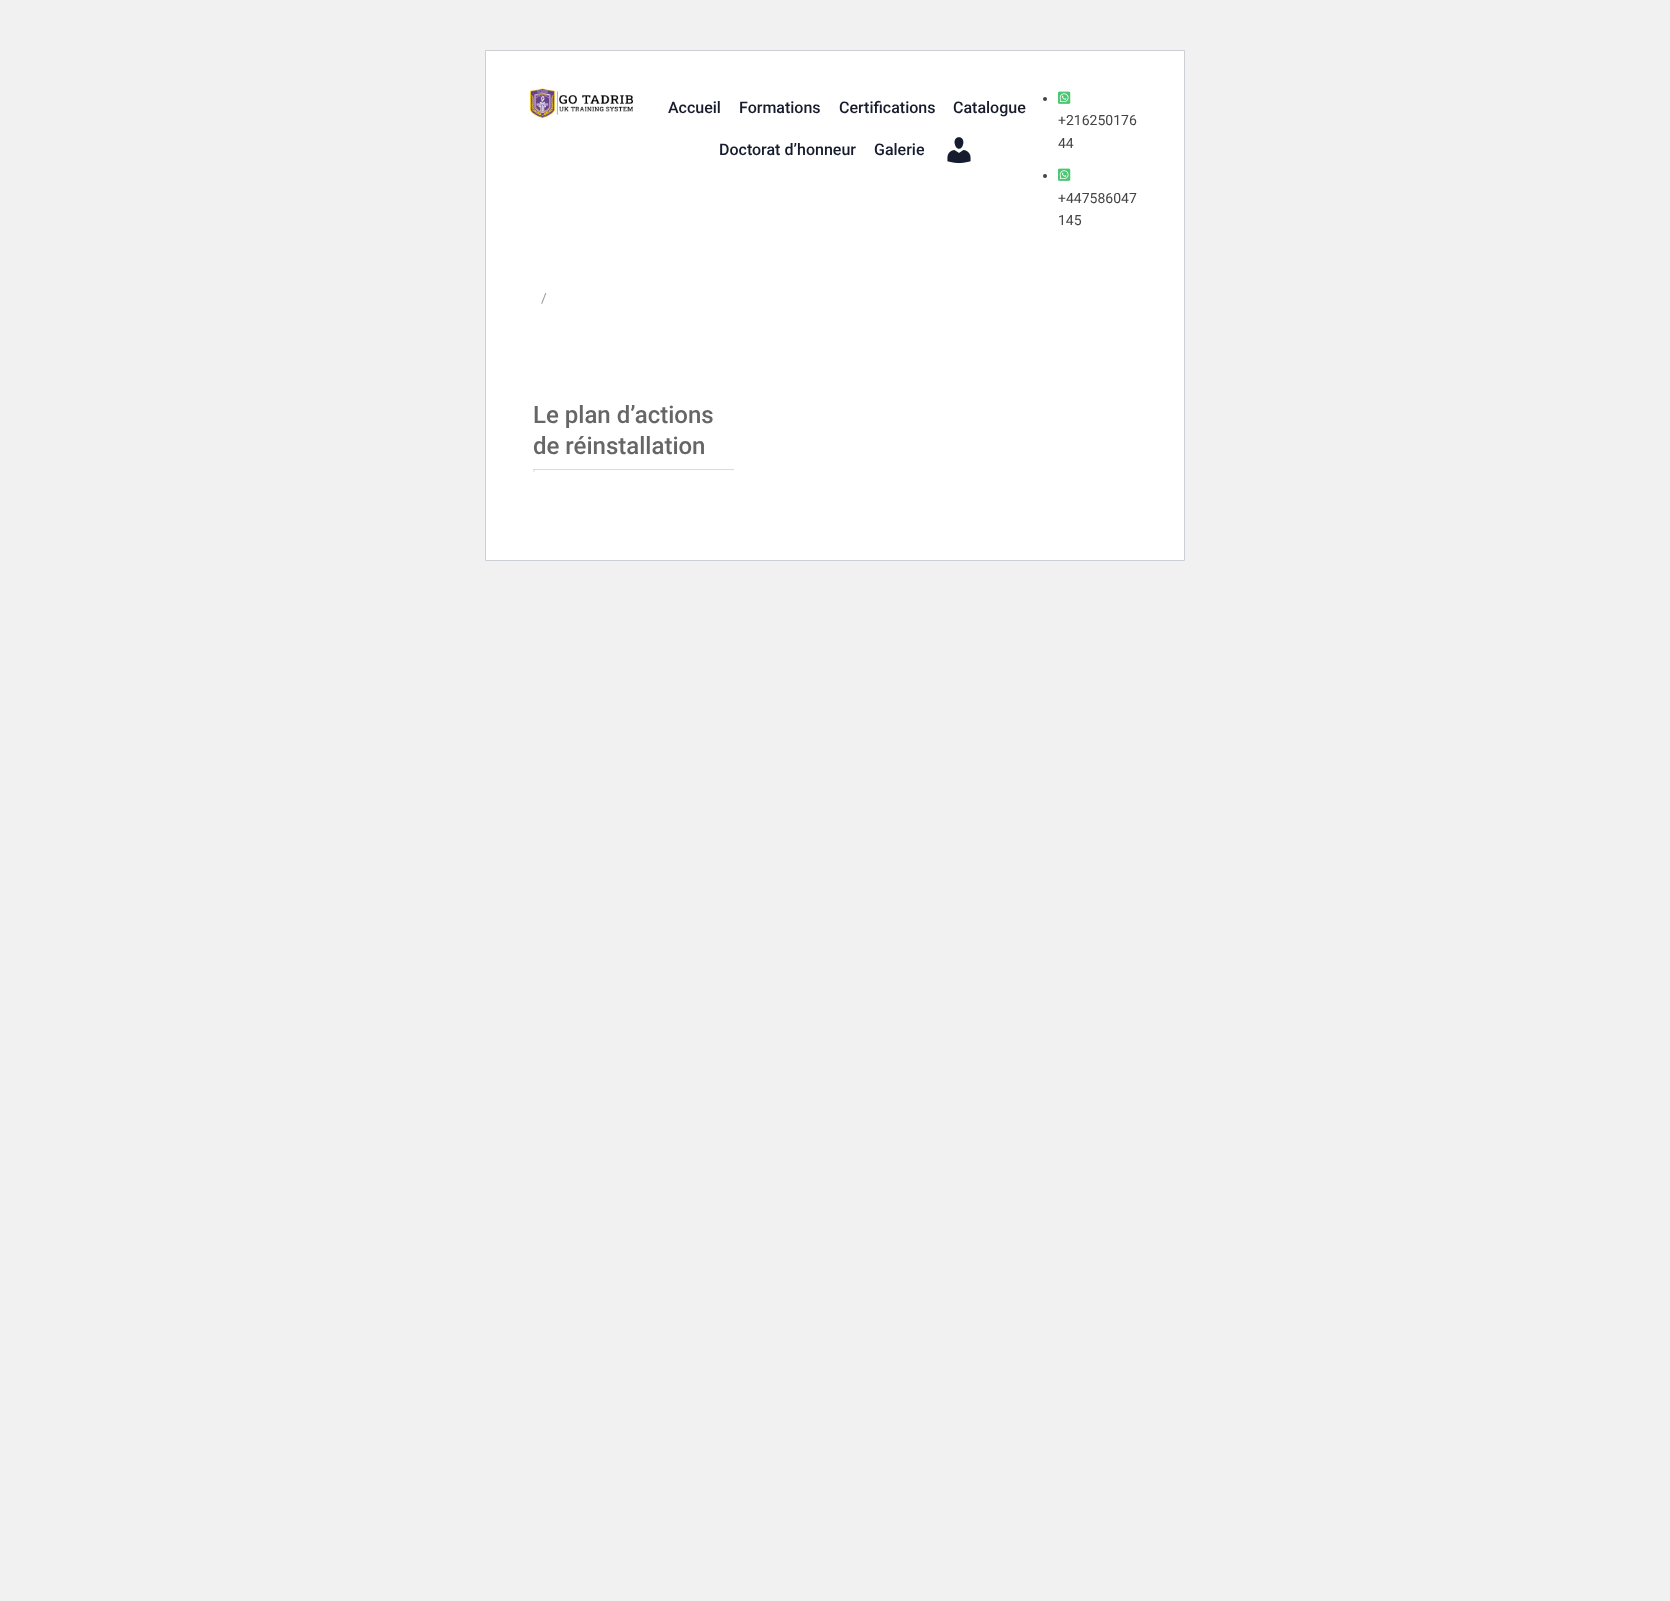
(async () => {
const canvas = document.querySelector("canvas")
canvas.width = 1670
canvas.height = 1601
const c = canvas.getContext("2d")
c.miterLimit = 4
c.fontKerning = "normal"
function T(s,x,y){c.fillText(s,x,y)}
function R(x,y,w,h){c.fillRect(x,y,w,h)}
async function I(src,x,y,w,h){const img=new Image();img.src=src;await img.decode();c.drawImage(img,x,y,w,h)}
c.fillStyle="#f1f1f1"
R(0,0,1670,1601)
c.fillStyle="#fff"
c.beginPath()
c.rect(485.5,50.5,699,510)
c.fill()
c.strokeStyle="#ccd0d4"
c.stroke()
await I("1.png",529,88,104,31)
c.font="500 16px Roboto"
c.fillStyle="#161c2d"
T("Accueil",668,113)
T("Formations",739,113)
T("Certifications",839,113)
T("Catalogue",953,113)
T("Doctorat d’honneur",719,155)
T("Galerie",874,155)
await I("2.png",947,137,24,27)
c.fillStyle="#444"
c.beginPath()
c.arc(1045,99,2,0,7)
c.fill()
await I("3.png",1058,91,13,13)
c.font="14px Roboto"
T("+216250176",1058,125)
T("44",1058,148)
c.beginPath()
c.arc(1045,176,2,0,7)
c.fill()
await I("3.png",1058,168,13,13)
T("+447586047",1058,203)
T("145",1058,225)
c.fillStyle="#949da6"
T("/",541,303)
c.fillStyle="#dadada"
R(533,469,201,1)
c.font="500 24px Roboto"
c.fillStyle="#666"
T("Le plan d’actions",533,423)
T("de réinstallation",533,454)
c.fillStyle="#e7e7ec"
c.beginPath()
c.arc(534,471,1,0,7)
c.fill()
})()
